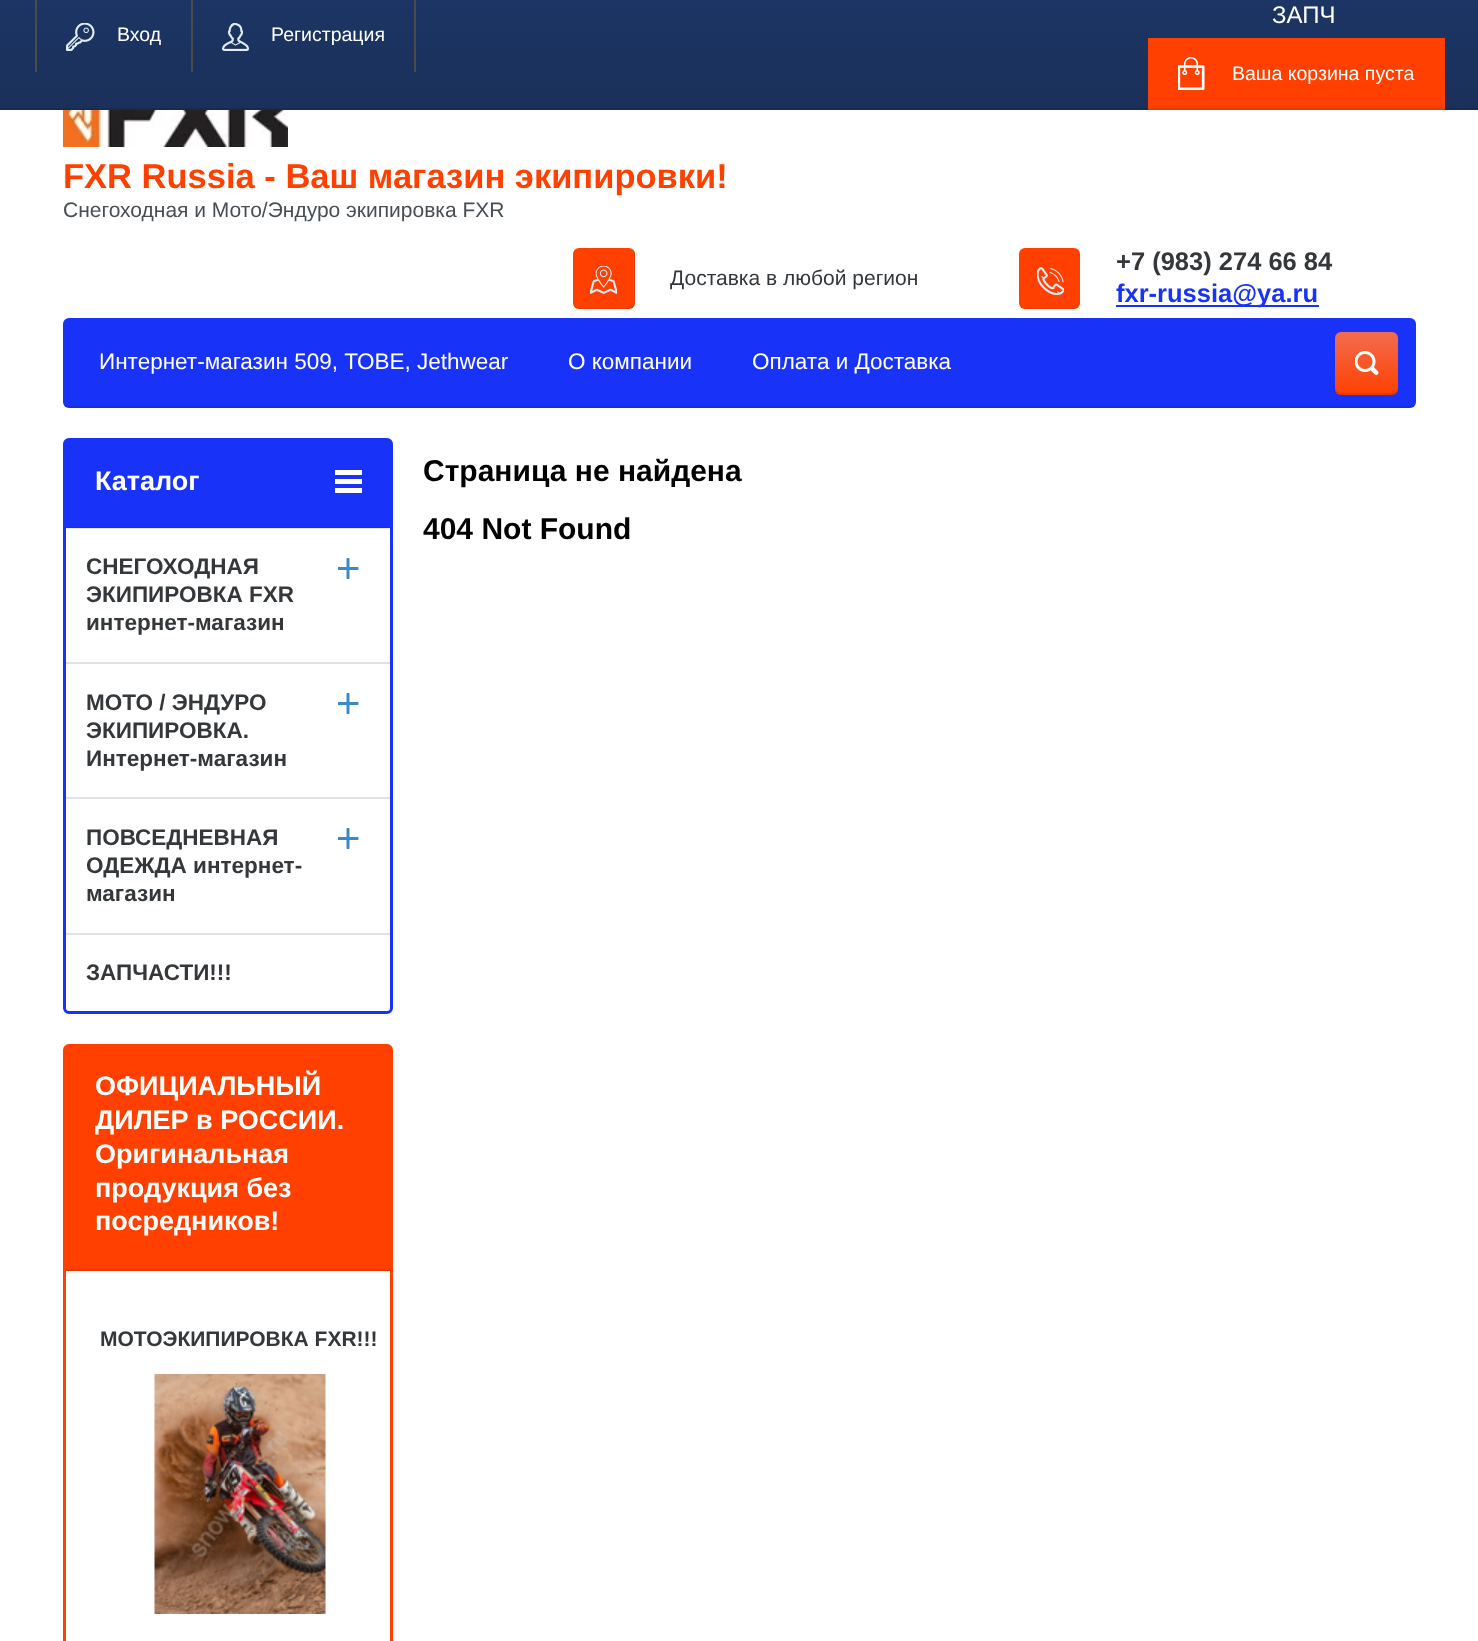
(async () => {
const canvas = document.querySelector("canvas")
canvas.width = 1478
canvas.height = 1641
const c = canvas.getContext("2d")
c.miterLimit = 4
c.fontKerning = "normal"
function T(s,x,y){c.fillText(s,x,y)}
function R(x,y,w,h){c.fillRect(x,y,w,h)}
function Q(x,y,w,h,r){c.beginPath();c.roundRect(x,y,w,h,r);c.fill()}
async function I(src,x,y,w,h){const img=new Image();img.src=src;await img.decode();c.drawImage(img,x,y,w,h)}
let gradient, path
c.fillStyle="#fff"
R(0,0,1478,1641)
c.fillStyle="#e6e6e6"
R(66,528,324,1)
gradient = c.createLinearGradient(740,110,740,0)
gradient.addColorStop(0,"#1a305a")
gradient.addColorStop(1,"#1c3564")
c.fillStyle = gradient
R(0,0,1478,108)
c.fillStyle="#172b51"
R(0,108,1478,2)
c.font="24px Liberation Sans"
c.fillStyle="#fff"
T("ЗАПЧ",1272,23)
c.fillStyle="#4b4b4b"
R(35,0,2,72)
await I("1.png",66,23,29,28)
R(191,0,2,72)
c.font="19.5px Liberation Sans"
c.fillStyle="#fff"
T("Вход",117,41)
await I("2.png",222,23,27,28)
c.fillStyle="#4b4b4b"
R(414,0,2,72)
c.fillStyle="#fff"
T("Регистрация",271,41)
c.fillStyle="#ff4000"
R(1148,38,297,70)
c.fillStyle="#e63a00"
R(1148,108,297,2)
await I("3.png",1178,57,27,33)
c.fillStyle="#fff"
T("Ваша корзина пуста",1232,80)
await I("4.png",63,110,225,37)
c.font="bold 34.5px Liberation Sans"
c.fillStyle="#ff4000"
T("FXR Russia - Ваш магазин экипировки!",63,188)
c.font="21px Liberation Sans"
c.fillStyle="#474f54"
T("Снегоходная и Мото/Эндуро экипировка FXR",63,217)
c.fillStyle="#ff4000"
Q(573,248,62,61,6)
c.fillStyle="#0000001a"
path = new Path2D("M573 302v1c0 3 3 6 6 6h50c3 0 6-3 6-6v-49c0-1 0-3-1-4v44c0 4 2 13-5 14h-42c-4 0-14 1-14-6z")
c.fill(path)
await I("5.png",590,266,27,28)
c.fillStyle="#34383a"
T("Доставка в любой регион",670,285)
c.fillStyle="#ff4000"
Q(1019,248,61,61,6)
c.fillStyle="#0000001a"
path = new Path2D("M1020 306c1 2 3 3 5 3h49c3 0 6-3 6-6v-1c0 3-3 6-6 6h-50c-1 0-3-1-4-2z")
c.fill(path)
await I("6.png",1037,267,27,29)
c.font="bold 25.5px Liberation Sans"
c.fillStyle="#34383a"
T("+7 (983) 274 66 84",1116,270)
c.fillStyle="#1932f7"
R(1116,305,203,2)
T("fxr-russia@ya.ru",1116,302)
Q(63,318,1353,90,6)
c.fillStyle="#0000001a"
path = new Path2D("M63 400v2c0 3 3 6 6 6h1341c3 0 6-3 6-6v-2c0 4-3 6-6 6h-1341c-3 0-6-2-6-6z")
c.fill(path)
c.font="22.5px Liberation Sans"
c.fillStyle="#fff"
T("Интернет-магазин 509, ТОВЕ, Jethwear",99,369)
T("О компании",568,369)
T("Оплата и Доставка",752,369)
gradient = c.createLinearGradient(1367,395,1367,332)
gradient.addColorStop(0,"#ff4000")
gradient.addColorStop(1,"#f26c4f")
c.fillStyle = gradient
Q(1335,332,63,63,6)
c.fillStyle="#0000001a"
path = new Path2D("M1335 387c0 10 6 8 15 8h34c8 0 14 2 14-8c0 3-3 6-6 6h-51c-3 0-6-3-6-6z")
c.fill(path)
await I("7.png",1355,351,24,24)
c.beginPath()
c.roundRect(64.5,439.5,327,573,4.5)
c.strokeStyle="#1932f7"
c.lineWidth=3
c.stroke()
c.fillStyle="#1932f7"
R(66,441,324,86)
c.fillStyle="#172dde"
R(66,527,324,1)
c.font="bold 27px Liberation Sans"
c.fillStyle="#fff"
T("Каталог",95,490)
R(335,470,27,5)
R(335,479,27,5)
R(335,488,27,5)
c.font="bold 22.5px Liberation Sans"
c.fillStyle="#34383a"
T("СНЕГОХОДНАЯ",86,574)
T("ЭКИПИРОВКА FXR",86,602)
T("интернет-магазин",86,630)
await I("8.png",338,558,21,21)
c.fillStyle="#e1e1e1"
R(66,662,324,2)
c.fillStyle="#34383a"
T("МОТО / ЭНДУРО",86,710)
T("ЭКИПИРОВКА.",86,738)
T("Интернет-магазин",86,766)
await I("8.png",338,693,21,21)
c.fillStyle="#e1e1e1"
R(66,797,324,2)
c.fillStyle="#34383a"
T("ПОВСЕДНЕВНАЯ",86,845)
T("ОДЕЖДА интернет-",86,873)
T("магазин",86,901)
await I("8.png",338,828,21,21)
c.fillStyle="#e1e1e1"
R(66,933,324,2)
c.fillStyle="#34383a"
T("ЗАПЧАСТИ!!!",86,980)
c.beginPath()
c.roundRect(64.5,1045.5,327,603,4.5)
c.strokeStyle="#ff4000"
c.stroke()
c.fillStyle="#ff4000"
R(66,1047,324,222)
c.fillStyle="#e63a00"
R(66,1269,324,2)
c.font="bold 27px Liberation Sans"
c.fillStyle="#fff"
T("ОФИЦИАЛЬНЫЙ",95,1095)
T("ДИЛЕР в РОССИИ.",95,1129)
T("Оригинальная",95,1163)
T("продукция без",95,1197)
T("посредников!",95,1230)
c.font="bold 21px Liberation Sans"
c.fillStyle="#34383a"
T("МОТОЭКИПИРОВКА FXR!!!",100,1346)
await I("9.png",154,1374,172,240)
c.font="bold 30px Liberation Sans"
c.fillStyle="#000"
T("Страница не найдена",423,481)
T("404 Not Found",423,539)
})()
